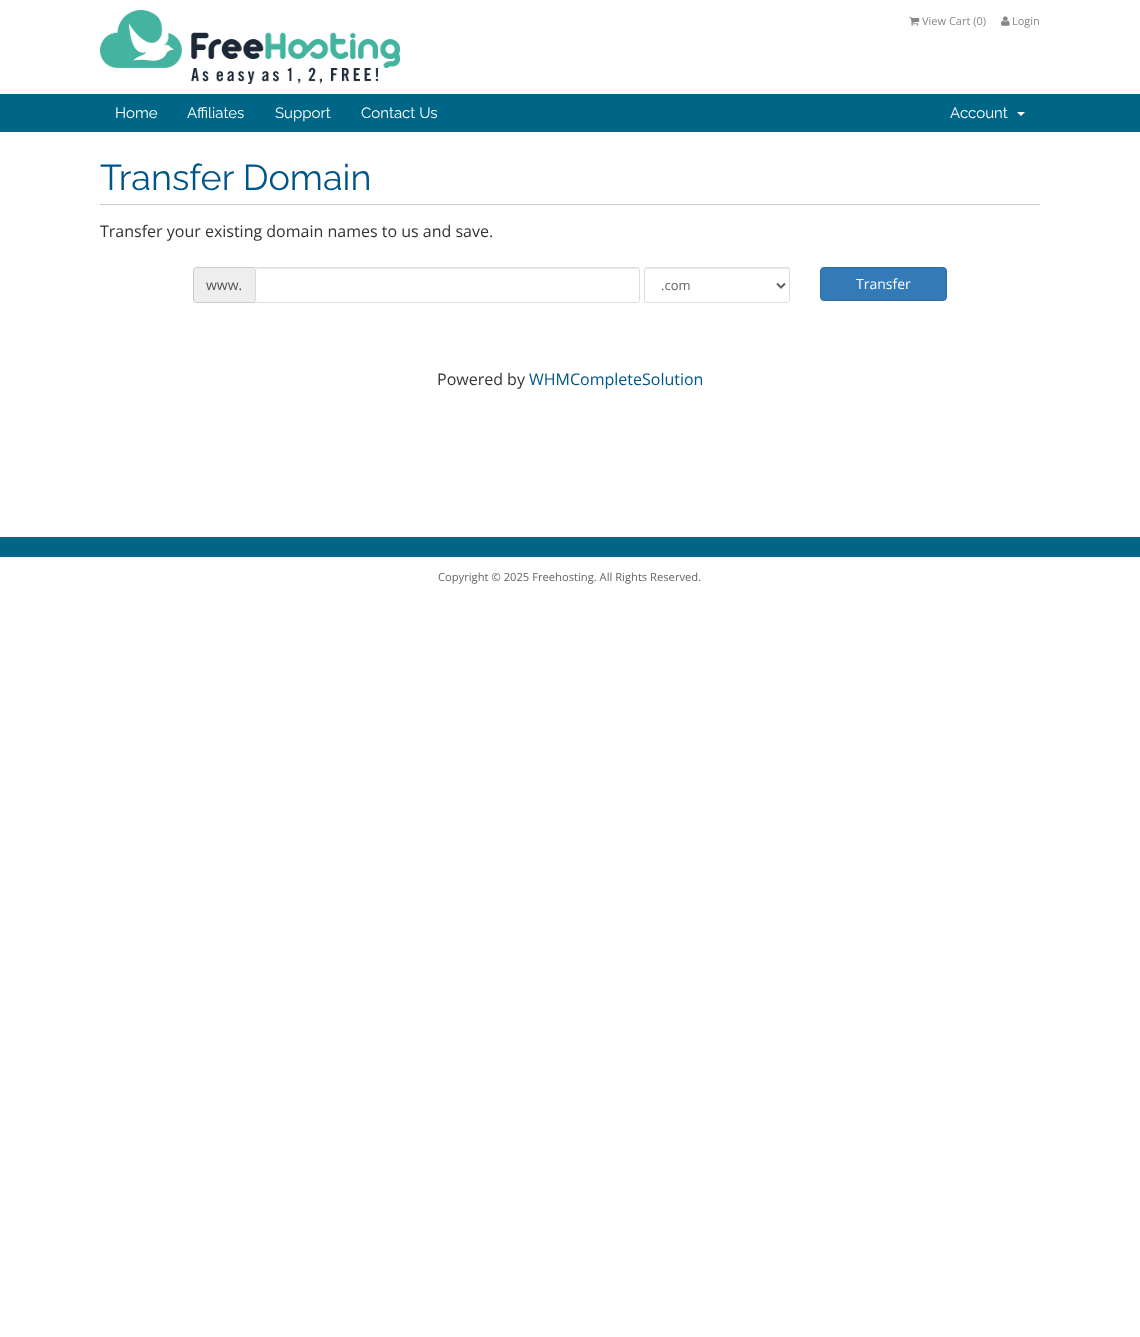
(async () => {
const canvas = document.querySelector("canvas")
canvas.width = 1140
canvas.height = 1337
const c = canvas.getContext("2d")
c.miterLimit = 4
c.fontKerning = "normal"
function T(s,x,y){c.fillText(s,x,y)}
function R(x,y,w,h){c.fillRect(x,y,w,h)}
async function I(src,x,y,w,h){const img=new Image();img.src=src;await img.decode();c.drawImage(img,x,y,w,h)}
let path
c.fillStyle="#fff"
R(0,0,1140,1337)
await I("1.png",100,10,300,74)
await I("2.png",909,17,11,9)
c.font="11px Open Sans"
c.fillStyle="#888"
T("View Cart (0)",922,25)
await I("3.png",1001,16,9,10)
T("Login",1012,25)
c.fillStyle="#006687"
R(0,94,1140,38)
c.font="15px Raleway"
c.fillStyle="#fff"
T("Home",115,118)
T("Affiliates",187,118)
T("Support",275,118)
T("Contact Us",361,118)
T("Account",950,118)
path = new Path2D("M1017 112h8l-4 4z")
c.fill(path)
c.fillStyle="#ccc"
R(100,204,940,1)
c.font="36px Raleway"
c.fillStyle="#058"
T("Transfer Domain",100,190)
c.font="16px Open Sans"
c.fillStyle="#333"
T("Transfer your existing domain names to us and save.",100,237)
c.fillStyle="#eee"
c.beginPath()
c.roundRect(193,267,62,36,[4,0,0,4])
c.fill()
c.fillStyle="#ccc"
path = new Path2D("M197 267h58v36h-58c-2 0-4-2-4-4v-28c0-2 2-4 4-4zm0 1h58v34h-58c-2 0-3-1-3-3v-28c0-2 1-3 3-3z")
c.fill(path,"evenodd")
c.font="14px Open Sans"
c.fillStyle="#555"
T("www.",206,290)
c.fillStyle="#ececec"
path = new Path2D("M258 269h379c1 0 2 1 2 2v-2l-2-1h-379c-2 0-2 2-2 3c0-1 1-2 2-2z")
c.fill(path)
c.beginPath()
c.roundRect(255.5,267.5,384,35,2.5)
c.strokeStyle="#ddd"
c.stroke()
path = new Path2D("M647 269h140c1 0 2 1 2 2c0-1 0-2-1-3h-141l-2 1v2c0-1 1-2 2-2z")
c.fill(path)
c.beginPath()
c.roundRect(644.5,267.5,145,35,2.5)
c.stroke()
path = new Path2D("M777 283.5l4 4l4-4")
c.strokeStyle="#626262"
c.lineWidth=2
c.stroke(path)
c.font="13px Open Sans"
c.fillStyle="#666"
T(".com",661,290)
c.fillStyle="#337ab7"
c.beginPath()
c.roundRect(820.5,267.5,126,33,3.5)
c.fill()
c.strokeStyle="#2e6da4"
c.lineWidth=1
c.stroke()
c.font="14px Open Sans"
c.fillStyle="#fff"
T("Transfer",856,289)
c.font="16px Open Sans"
c.fillStyle="#333"
T("Powered by",437,385)
c.fillStyle="#058"
T("WHMCompleteSolution",529,385)
c.fillStyle="#006687"
R(0,537,1140,20)
c.font="11.2px Open Sans"
c.fillStyle="#666"
T("Copyright © 2025 Freehosting. All Rights Reserved.",438,581)
})()
